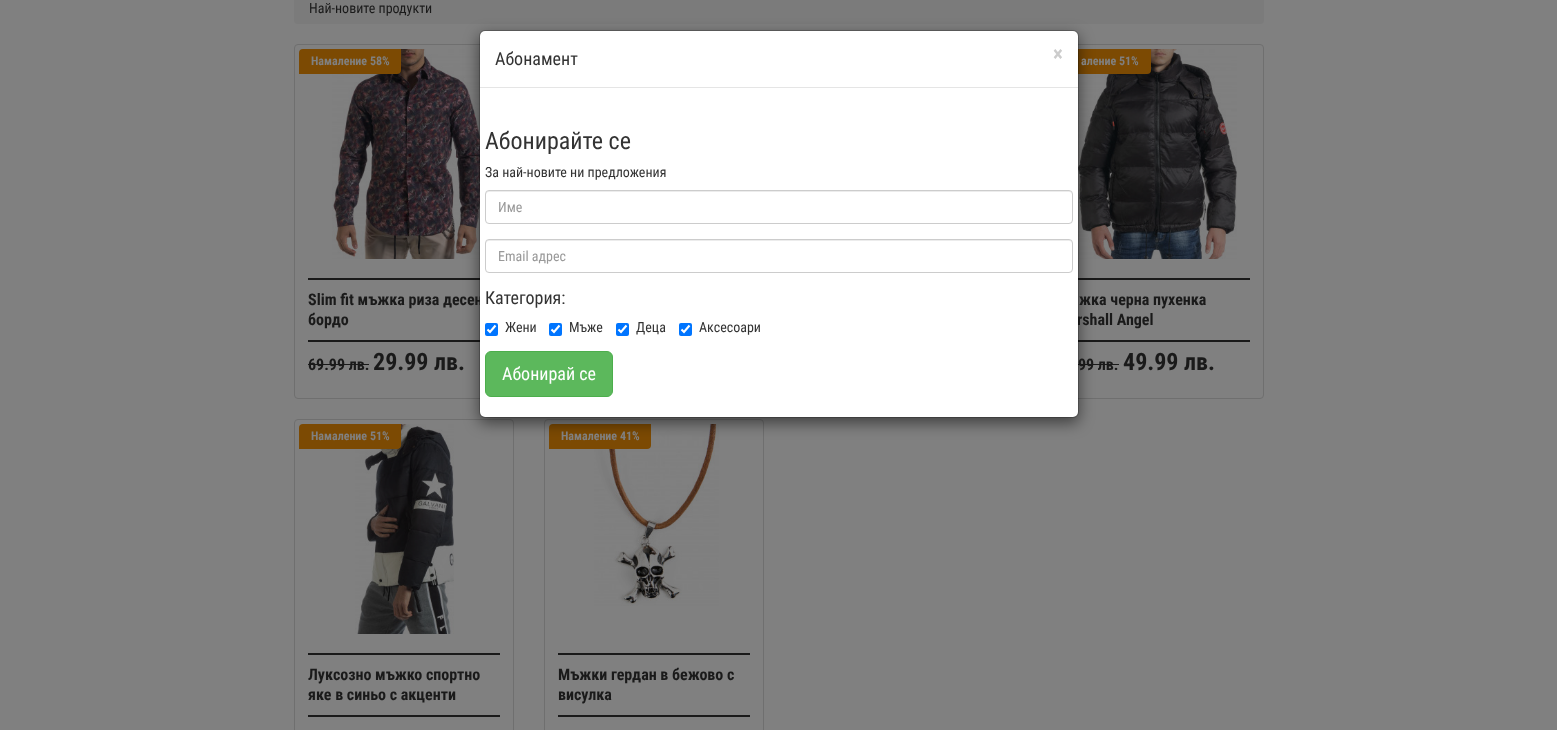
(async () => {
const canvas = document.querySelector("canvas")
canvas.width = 1557
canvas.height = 730
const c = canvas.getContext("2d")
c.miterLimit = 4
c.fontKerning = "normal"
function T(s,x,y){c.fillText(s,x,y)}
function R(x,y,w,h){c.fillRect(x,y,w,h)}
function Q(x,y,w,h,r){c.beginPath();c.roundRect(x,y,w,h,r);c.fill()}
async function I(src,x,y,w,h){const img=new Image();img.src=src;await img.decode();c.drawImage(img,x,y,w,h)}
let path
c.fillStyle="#808080"
R(0,0,1557,730)
c.fillStyle="#7b7b7b"
Q(294,-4,970,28,4)
c.font="14px Roboto Condensed"
c.fillStyle="#1a1a1a"
T("Най-новите продукти",309,13)
c.beginPath()
c.roundRect(294.5,44.5,219,354,3.5)
c.strokeStyle="#6f6f6f"
c.stroke()
await I("1.png",332,49,148,210)
R(308,278,172,2)
R(308,340,172,2)
c.beginPath()
c.roundRect(1044.5,44.5,219,354,3.5)
c.stroke()
await I("2.png",1078,49,159,210)
c.fillStyle="#7c4a03"
c.beginPath()
c.roundRect(1049,49,102,25,[4,0,4,0])
c.fill()
c.fillStyle="#1a1a1a"
R(1078,278,172,2)
R(1078,340,172,2)
R(1078,364,41,1)
c.beginPath()
c.roundRect(294.5,419.5,219,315,3.5)
c.stroke()
c.beginPath()
c.roundRect(544.5,419.5,219,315,3.5)
c.stroke()
await I("4.png",594,424,125,182)
c.fillStyle="#7c4a03"
c.beginPath()
c.roundRect(549,424,102,25,[4,0,4,0])
c.fill()
c.fillStyle="#00000080"
c.filter="blur(7.5px)"
c.beginPath()
c.roundRect(479,35,600,388,6)
c.fill()
c.filter="none"
c.font="bold 16px Roboto Condensed"
c.fillStyle="#1a1a1a"
T("Slim fit мъжка риза десен",308,305)
T("rshall Angel",1077,325)
c.fillStyle="#fff"
Q(480,31,598,386,5)
c.beginPath()
c.roundRect(479.5,30.5,599,387,5.5)
c.strokeStyle="#00000033"
c.stroke()
c.fillStyle="#e5e5e5"
R(480,87,598,1)
c.font="18px Roboto Condensed"
c.fillStyle="#333"
T("Абонамент",495,65)
c.font="bold 21px Roboto Condensed"
c.fillStyle="#ccc"
T("×",1053,61)
c.font="24px Roboto Condensed"
c.fillStyle="#333"
T("Абонирайте се",485,149)
c.font="14px Roboto Condensed"
T("За най-новите ни предложения",485,177)
c.fillStyle="#ececec"
path = new Path2D("M489 192h580c2 0 3 1 3 3v-1c0-2-1-3-3-3h-580c-2 0-3 1-3 3v1c0-2 1-3 3-3z")
c.fill(path)
c.beginPath()
c.roundRect(485.5,190.5,587,33,3.5)
c.strokeStyle="#ccc"
c.stroke()
c.fillStyle="#999"
T("Име",498,212)
c.fillStyle="#ececec"
path = new Path2D("M489 241h580c2 0 3 1 3 3v-1c0-2-1-3-3-3h-580c-2 0-3 1-3 3v1c0-2 1-3 3-3z")
c.fill(path)
c.beginPath()
c.roundRect(485.5,239.5,587,33,3.5)
c.stroke()
c.fillStyle="#999"
T("Email адрес",498,261)
c.font="18px Roboto Condensed"
c.fillStyle="#333"
T("Категория:",485,304)
c.fillStyle="#0075ff"
Q(485,323,13,13,2)
path = new Path2D("M487.5 329.5l2.5 2.5l5.5-6.5")
c.strokeStyle="#fff"
c.lineWidth=2.1
c.stroke(path)
c.font="14px Roboto Condensed"
c.fillStyle="#333"
T("Жени",505,332)
c.fillStyle="#0075ff"
Q(549,323,13,13,2)
path = new Path2D("M551.5 329.5l2.5 2.5l5.5-6.5")
c.stroke(path)
c.fillStyle="#333"
T("Мъже",569,332)
c.fillStyle="#0075ff"
Q(616,323,13,13,2)
path = new Path2D("M618.5 329.5l2.5 2.5l5.5-6.5")
c.stroke(path)
c.fillStyle="#333"
T("Деца",636,332)
c.fillStyle="#0075ff"
Q(679,323,13,13,2)
path = new Path2D("M681.5 329.5l2.5 2.5l5.5-6.5")
c.stroke(path)
c.fillStyle="#333"
T("Аксесоари",699,332)
c.fillStyle="#5cb85c"
c.beginPath()
c.roundRect(485.5,351.5,127,45,5.5)
c.fill()
c.strokeStyle="#4cae4c"
c.lineWidth=1
c.stroke()
c.font="18px Roboto Condensed"
c.fillStyle="#fff"
T("Абонирай се",502,380)
c.fillStyle="#7c4a03"
c.beginPath()
c.roundRect(299,49,102,25,[4,0,4,0])
c.fill()
c.font="bold 12px Roboto Condensed"
c.fillStyle="#808080"
T("Намаление 58%",311,65)
c.font="bold 16px Roboto Condensed"
c.fillStyle="#1a1a1a"
T("бордо",308,325)
T("69.99 лв.",308,370)
R(308,364,61,1)
c.font="bold 24px Roboto Condensed"
T("29.99 лв.",373,370)
c.font="bold 12px Roboto Condensed"
c.fillStyle="#808080"
T("аление 51%",1081,65)
c.font="bold 16px Roboto Condensed"
c.fillStyle="#1a1a1a"
T("жка черна пухенка",1079,305)
T("99 лв.",1078,370)
c.font="bold 24px Roboto Condensed"
T("49.99 лв.",1123,370)
await I("3.png",355,424,99,210)
c.fillStyle="#7c4a03"
c.beginPath()
c.roundRect(299,424,102,25,[4,0,4,0])
c.fill()
c.font="bold 12px Roboto Condensed"
c.fillStyle="#808080"
T("Намаление 51%",311,440)
c.fillStyle="#1a1a1a"
R(308,653,192,2)
c.font="bold 16px Roboto Condensed"
T("Луксозно мъжко спортно",308,680)
T("яке в синьо с акценти",308,700)
R(308,715,192,2)
c.font="bold 12px Roboto Condensed"
c.fillStyle="#808080"
T("Намаление 41%",561,440)
c.fillStyle="#1a1a1a"
R(558,653,192,2)
c.font="bold 16px Roboto Condensed"
T("Мъжки гердан в бежово с",558,680)
T("висулка",558,700)
R(558,715,192,2)
})()
